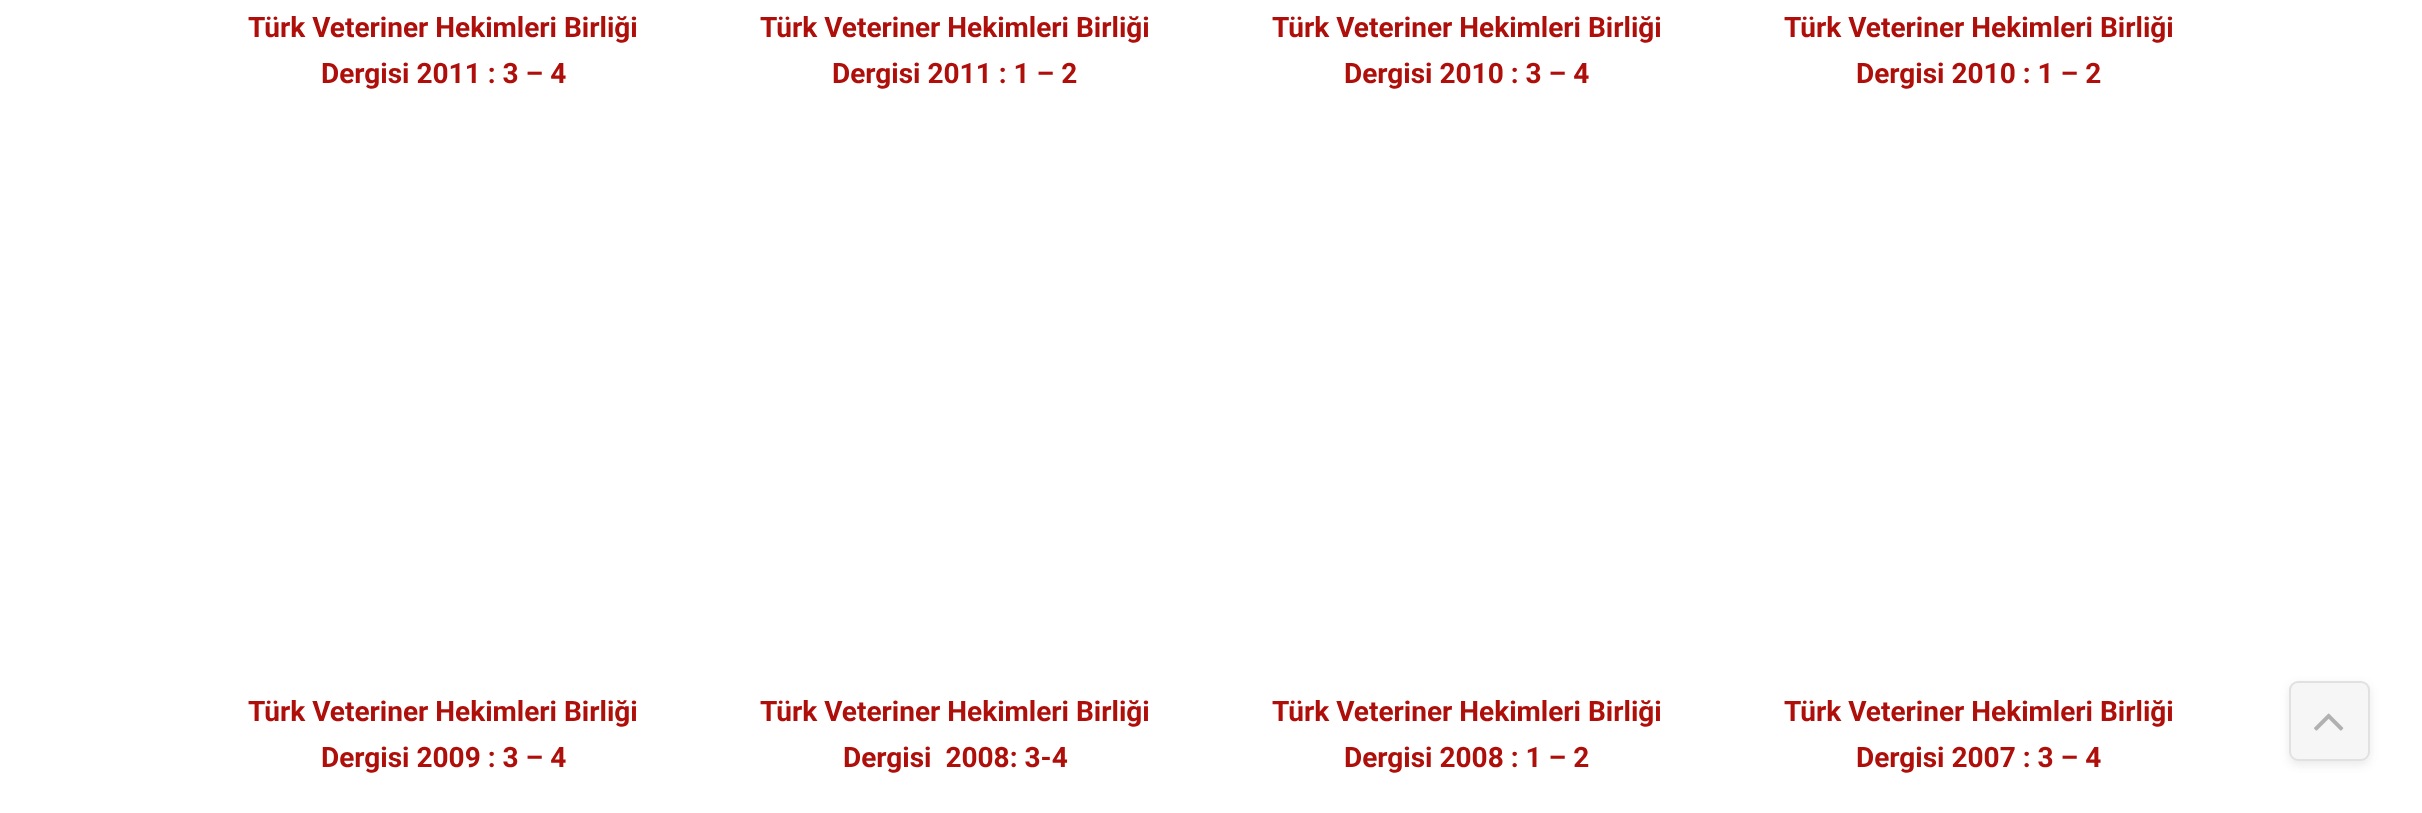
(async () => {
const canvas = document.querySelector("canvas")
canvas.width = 2422
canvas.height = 813
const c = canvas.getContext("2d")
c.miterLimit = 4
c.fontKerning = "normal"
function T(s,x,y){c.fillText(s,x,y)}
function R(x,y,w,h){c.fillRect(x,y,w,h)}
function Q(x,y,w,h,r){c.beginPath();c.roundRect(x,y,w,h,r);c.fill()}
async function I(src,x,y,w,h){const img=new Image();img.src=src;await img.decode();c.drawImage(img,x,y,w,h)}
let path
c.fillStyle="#fff"
R(0,0,2422,813)
c.font="bold 28px Roboto"
c.fillStyle="#ae0f0a"
T("Türk Veteriner Hekimleri Birliği",248,37)
T("Dergisi 2011 : 3 – 4",321,83)
T("Türk Veteriner Hekimleri Birliği",760,37)
T("Dergisi 2011 : 1 – 2",832,83)
T("Türk Veteriner Hekimleri Birliği",1272,37)
T("Dergisi 2010 : 3 – 4",1344,83)
T("Türk Veteriner Hekimleri Birliği",1784,37)
T("Dergisi 2010 : 1 – 2",1856,83)
T("Türk Veteriner Hekimleri Birliği",248,721)
T("Dergisi 2009 : 3 – 4",321,767)
T("Türk Veteriner Hekimleri Birliği",760,721)
T("Dergisi  2008: 3-4",843,767)
T("Türk Veteriner Hekimleri Birliği",1272,721)
T("Dergisi 2008 : 1 – 2",1344,767)
T("Türk Veteriner Hekimleri Birliği",1784,721)
T("Dergisi 2007 : 3 – 4",1856,767)
c.save()
path = new Path2D("M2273 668h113v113h-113zm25 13h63c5 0 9 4 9 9v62c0 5-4 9-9 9h-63c-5 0-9-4-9-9v-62c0-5 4-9 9-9z")
c.clip(path,"evenodd")
c.fillStyle="#3333331a"
c.filter="blur(5px)"
c.beginPath()
c.roundRect(2289,684,81,81,9)
c.fill()
c.filter="none"
c.restore()
c.fillStyle="#c4c4c426"
Q(2289,681,81,80,9)
c.beginPath()
c.roundRect(2290,682,79,78,8)
c.strokeStyle="#3333331c"
c.lineWidth=2
c.stroke()
await I("1.png",2314,713,30,18)
})()
